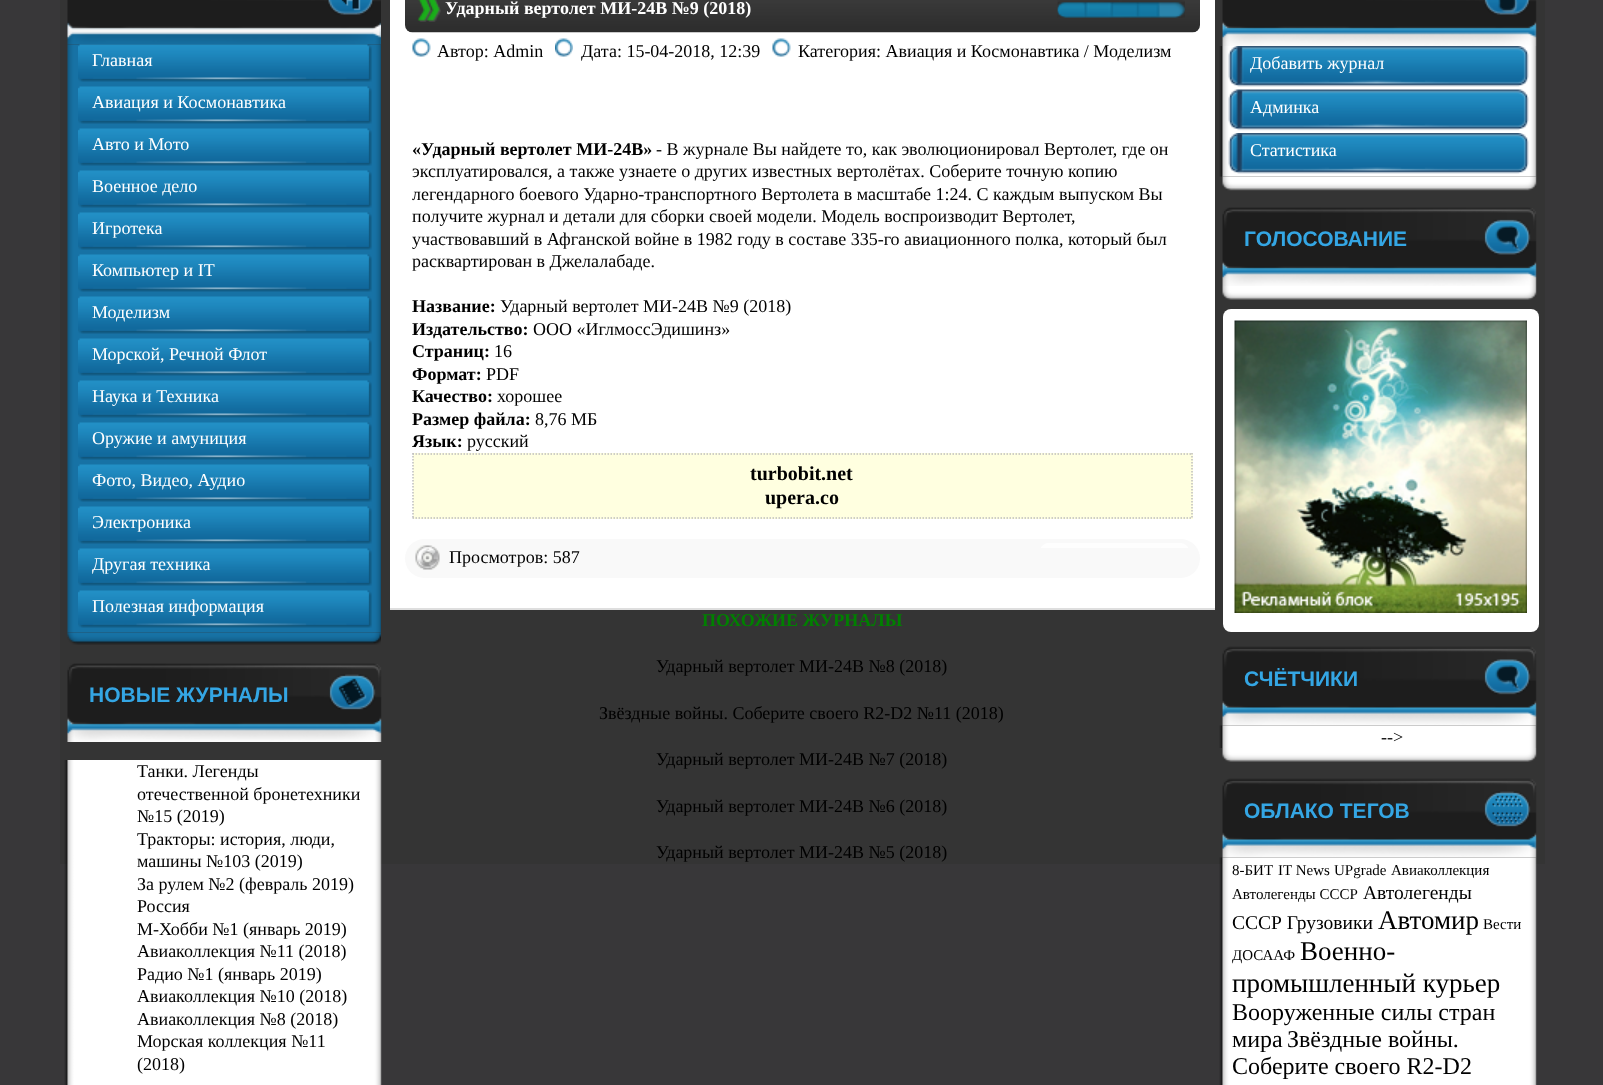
(async () => {
const canvas = document.querySelector("canvas")
canvas.width = 1603
canvas.height = 1085
const c = canvas.getContext("2d")
c.miterLimit = 4
c.fontKerning = "normal"
function T(s,x,y){c.fillText(s,x,y)}
function R(x,y,w,h){c.fillRect(x,y,w,h)}
function Q(x,y,w,h,r){c.beginPath();c.roundRect(x,y,w,h,r);c.fill()}
async function I(src,x,y,w,h){const img=new Image();img.src=src;await img.decode();c.drawImage(img,x,y,w,h)}
let path
c.fillStyle="#383739"
R(0,0,1603,1085)
c.fillStyle="#343434"
R(60,0,1485,864)
await I("1.png",67,0,314,45)
await I("2.png",328,0,46,15)
await I("3.png",67,44,314,589)
await I("4.png",78,44,294,38)
c.font="18px Liberation Serif"
c.fillStyle="#fff"
T("Главная",92,66)
await I("5.png",78,86,294,38)
T("Авиация и Космонавтика",92,108)
await I("5.png",78,128,294,38)
T("Авто и Мото",92,150)
await I("5.png",78,170,294,38)
T("Военное дело",92,192)
await I("5.png",78,212,294,38)
T("Игротека",92,234)
await I("5.png",78,254,294,38)
T("Компьютер и IT",92,276)
await I("5.png",78,296,294,38)
T("Моделизм",92,318)
await I("5.png",78,338,294,38)
T("Морской, Речной Флот",92,360)
await I("5.png",78,380,294,38)
T("Наука и Техника",92,402)
await I("5.png",78,422,294,38)
T("Оружие и амуниция",92,444)
await I("5.png",78,464,294,38)
T("Фото, Видео, Аудио",92,486)
await I("5.png",78,506,294,38)
T("Электроника",92,528)
await I("5.png",78,548,294,38)
T("Другая техника",92,570)
await I("5.png",78,590,294,38)
T("Полезная информация",92,612)
await I("6.png",67,632,314,13)
await I("7.png",67,663,315,79)
c.font="bold 21px Liberation Sans"
c.fillStyle="#34a6e4"
T("НОВЫЕ ЖУРНАЛЫ",89,702)
await I("8.png",329,674,47,36)
await I("9.png",64,760,318,325)
c.font="18px Liberation Serif"
c.fillStyle="#000"
T("Танки. Легенды",137,777)
T("отечественной бронетехники",137,800)
T("№15 (2019)",137,822)
T("Тракторы: история, люди,",137,845)
T("машины №103 (2019)",137,867)
T("За рулем №2 (февраль 2019)",137,890)
T("Россия",137,912)
T("М-Хобби №1 (январь 2019)",137,935)
T("Авиаколлекция №11 (2018)",137,957)
T("Радио №1 (январь 2019)",137,980)
T("Авиаколлекция №10 (2018)",137,1002)
T("Авиаколлекция №8 (2018)",137,1025)
T("Морская коллекция №11",137,1047)
T("(2018)",137,1070)
c.fillStyle="#fff"
R(390,0,825,608)
c.fillStyle="#dedede"
R(390,608,825,2)
await I("10.png",405,0,795,33)
await I("11.png",417,0,24,22)
c.font="bold 18px Liberation Serif"
c.fillStyle="#fff"
T("Ударный вертолет МИ-24В №9 (2018)",445,14)
await I("12.png",1057,0,128,18)
await I("13.png",1057,2,128,16)
await I("14.png",412,38,19,19)
c.font="18px Liberation Serif"
c.fillStyle="#000"
T("Автор: Admin",437,57)
await I("15.png",555,38,18,19)
T("Дата: 15-04-2018, 12:39",581,57)
await I("16.png",772,38,19,19)
T("Категория: Авиация и Космонавтика / Моделизм",798,57)
c.font="bold 18px Liberation Serif"
T("«Ударный вертолет МИ-24В»",412,155)
c.font="18px Liberation Serif"
T("- В журнале Вы найдете то, как эволюционировал Вертолет, где он",656,155)
T("эксплуатировался, а также узнаете о других известных вертолётах. Соберите точную копию",412,177)
T("легендарного боевого Ударно-транспортного Вертолета в масштабе 1:24. С каждым выпуском Вы",412,200)
T("получите журнал и детали для сборки своей модели. Модель воспроизводит Вертолет,",412,222)
T("участвовавший в Афганской войне в 1982 году в составе 335-го авиационного полка, который был",412,245)
T("расквартирован в Джелалабаде.",412,267)
c.font="bold 18px Liberation Serif"
T("Название:",412,312)
c.font="18px Liberation Serif"
T("Ударный вертолет МИ-24В №9 (2018)",500,312)
c.font="bold 18px Liberation Serif"
T("Издательство:",412,335)
c.font="18px Liberation Serif"
T("ООО «ИглмоссЭдишинз»",533,335)
c.font="bold 18px Liberation Serif"
T("Страниц:",412,357)
c.font="18px Liberation Serif"
T("16",494,357)
c.font="bold 18px Liberation Serif"
T("Формат:",412,380)
c.font="18px Liberation Serif"
T("PDF",486,380)
c.font="bold 18px Liberation Serif"
T("Качество:",412,402)
c.font="18px Liberation Serif"
T("хорошее",497,402)
c.font="bold 18px Liberation Serif"
T("Размер файла:",412,425)
c.font="18px Liberation Serif"
T("8,76 МБ",535,425)
c.font="bold 18px Liberation Serif"
T("Язык:",412,447)
c.font="18px Liberation Serif"
T("русский",467,447)
c.fillStyle="#ffffe0"
R(413,453,780,66)
path = new Path2D("M412.5 454h780")
c.strokeStyle="#bebebe"
c.lineWidth=1.5
c.setLineDash([1.5,1.5])
c.stroke(path)
path = new Path2D("M1192 453v66")
c.stroke(path)
path = new Path2D("M412.5 518h780")
c.stroke(path)
path = new Path2D("M413 453v66")
c.stroke(path)
c.font="bold 20px Liberation Serif"
c.fillStyle="#000"
T("turbobit.net",750,480)
T("upera.co",765,504)
c.fillStyle="#f9f9f9"
Q(405,539,795,39,19.5)
await I("17.png",1041,543,147,5)
await I("18.png",415,545,25,25)
c.font="18px Liberation Serif"
c.fillStyle="#000"
T("Просмотров: 587",449,563)
c.font="bold 18px Liberation Serif"
c.fillStyle="#008000"
T("ПОХОЖИЕ ЖУРНАЛЫ",702,626)
c.font="18px Liberation Serif"
c.fillStyle="#000"
T("Ударный вертолет МИ-24В №8 (2018)",656,672)
T("Звёздные войны. Соберите своего R2-D2 №11 (2018)",599,719)
T("Ударный вертолет МИ-24В №7 (2018)",656,765)
T("Ударный вертолет МИ-24В №6 (2018)",656,812)
T("Ударный вертолет МИ-24В №5 (2018)",656,858)
await I("19.png",1222,0,315,46)
await I("20.png",1484,0,46,15)
await I("21.png",1219,46,318,131)
await I("22.png",1228,46,301,41)
c.fillStyle="#fff"
T("Добавить журнал",1250,69)
await I("23.png",1228,89,301,42)
T("Админка",1250,113)
await I("24.png",1228,133,301,41)
T("Статистика",1250,156)
await I("25.png",1222,176,315,15)
await I("26.png",1222,207,315,79)
c.font="bold 21px Liberation Sans"
c.fillStyle="#34a6e4"
T("ГОЛОСОВАНИЕ",1244,246)
await I("27.png",1484,219,47,36)
await I("28.png",1222,286,315,14)
c.fillStyle="#fff"
Q(1223,309,316,323,8)
await I("29.png",1234,320,293,293)
await I("30.png",1222,646,315,80)
c.fillStyle="#34a6e4"
T("СЧЁТЧИКИ",1244,686)
await I("31.png",1484,659,47,36)
await I("32.png",1219,725,318,23)
c.font="18px Liberation Serif"
c.fillStyle="#000"
T("-->",1381,743)
await I("28.png",1222,748,315,14)
await I("30.png",1222,778,315,80)
c.font="bold 21px Liberation Sans"
c.fillStyle="#34a6e4"
T("ОБЛАКО ТЕГОВ",1244,818)
await I("33.png",1484,791,47,36)
await I("34.png",1219,857,318,228)
c.font="15px Liberation Serif"
c.fillStyle="#000"
T("8-БИТ",1232,875)
T("IT News",1278,875)
T("UPgrade",1334,875)
T("Авиаколлекция",1391,875)
T("Автолегенды СССР",1232,899)
c.font="19.5px Liberation Serif"
T("Автолегенды",1363,899)
T("СССР Грузовики",1232,929)
c.font="27px Liberation Serif"
T("Автомир",1378,929)
c.font="15px Liberation Serif"
T("Вести",1483,929)
T("ДОСААФ",1232,960)
c.font="27px Liberation Serif"
T("Военно-",1300,960)
T("промышленный курьер",1232,992)
c.font="24px Liberation Serif"
T("Вооруженные силы стран",1232,1020)
T("мира",1232,1047)
T("Звёздные войны.",1287,1047)
T("Соберите своего R2-D2",1232,1074)
})()
